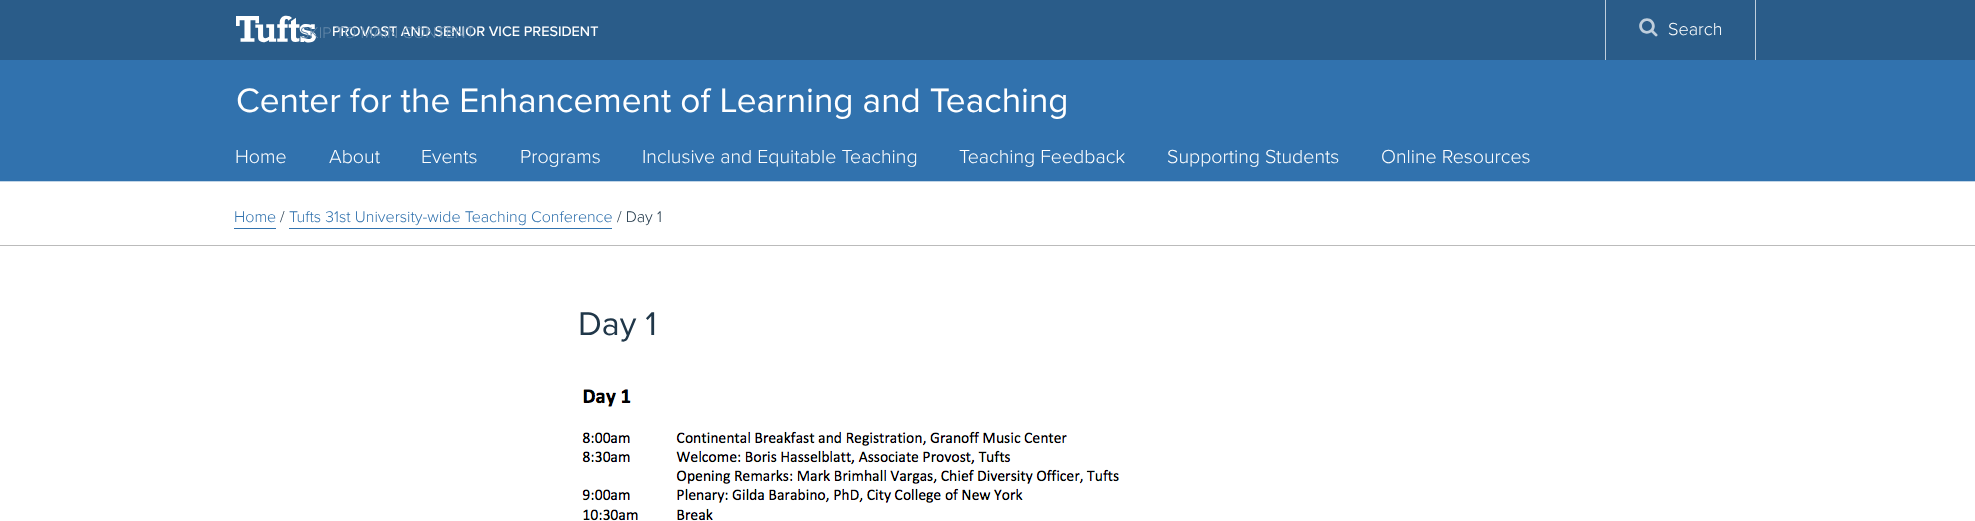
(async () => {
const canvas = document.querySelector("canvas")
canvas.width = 1975
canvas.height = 521
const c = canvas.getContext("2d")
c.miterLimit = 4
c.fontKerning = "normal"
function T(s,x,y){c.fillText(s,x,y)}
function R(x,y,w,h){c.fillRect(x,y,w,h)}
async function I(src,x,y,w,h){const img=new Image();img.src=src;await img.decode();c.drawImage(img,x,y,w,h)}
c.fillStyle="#fff"
R(0,0,1975,521)
c.fillStyle="#2a5c89"
R(0,0,1975,60)
await I("1.png",236,15,80,28)
c.font="500 14.4px Proxima Nova"
c.fillStyle="#fff"
T("PROVOST AND SENIOR VICE PRESIDENT",332,36)
c.font="300 16px Proxima Nova"
c.fillStyle="#6589aa"
T("SKIP TO MAIN CONTENT",300,38)
c.fillStyle="#bfcedc"
R(1755,0,1,60)
R(1605,0,1,60)
await I("2.png",1639,18,19,19)
c.font="300 18px Proxima Nova"
c.fillStyle="#fff"
T("Search",1668,35)
c.fillStyle="#3172ae"
R(0,60,1975,121)
c.font="300 19.6px Proxima Nova"
c.fillStyle="#fff"
T("Home",235,163)
T("About",329,163)
T("Events",421,163)
T("Programs",520,163)
T("Inclusive and Equitable Teaching",642,163)
T("Teaching Feedback",959,163)
T("Supporting Students",1167,163)
T("Online Resources",1381,163)
c.fillStyle="#c1d5e7"
R(0,181,1975,1)
c.font="35.2px Proxima Nova"
c.fillStyle="#fff"
T("Center for the Enhancement of Learning and Teaching",236,112)
c.fillStyle="#bbb"
R(0,245,1975,1)
c.font="300 16px Proxima Nova"
c.fillStyle="#3172ae"
T("Home",234,222)
R(234,228,42,1)
c.fillStyle="#203749"
T("/",280,222)
c.fillStyle="#3172ae"
T("Tufts 31st University-wide Teaching Conference",289,222)
R(289,228,323,1)
c.fillStyle="#203749"
T("/ Day 1",617,222)
c.font="34px Proxima Nova"
T("Day 1",578,335)
await I("3.png",578,389,568,132)
})()
